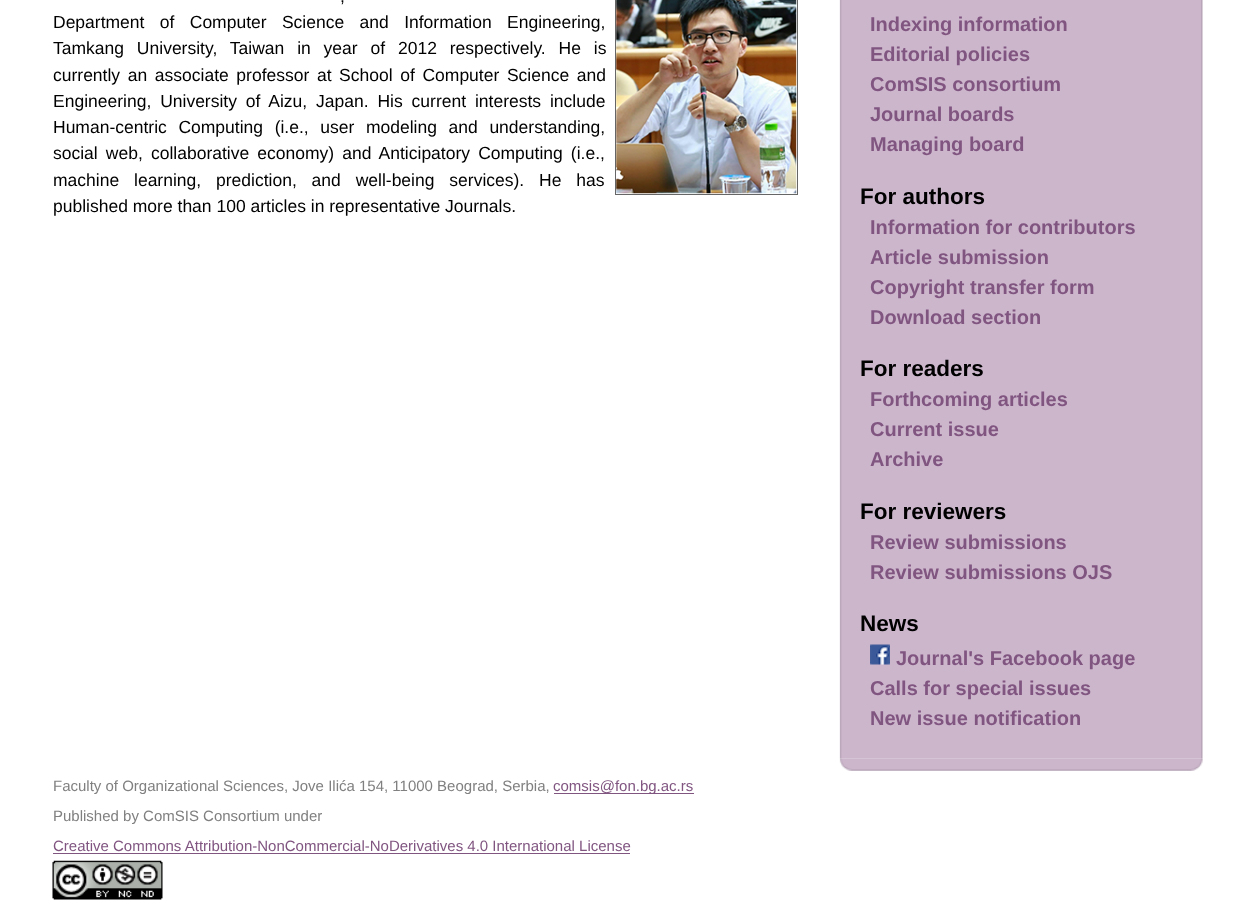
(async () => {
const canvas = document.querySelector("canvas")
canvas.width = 1255
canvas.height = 909
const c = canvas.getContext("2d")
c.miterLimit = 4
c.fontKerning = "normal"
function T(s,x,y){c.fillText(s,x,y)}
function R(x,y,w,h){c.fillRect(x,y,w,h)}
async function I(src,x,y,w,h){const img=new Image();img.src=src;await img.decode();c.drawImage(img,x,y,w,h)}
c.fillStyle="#fff"
R(0,0,1255,909)
await I("4.png",839,758,364,13)
await I("1.png",839,0,364,759)
c.wordSpacing="5px"
c.font="17.5px Liberation Sans"
c.fillStyle="#000"
T(",",340,2)
c.strokeStyle="#666"
c.strokeRect(615.5,-.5,182,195)
await I("2.png",616,0,181,194)
c.wordSpacing="10.5px"
T("Department of Computer Science and Information Engineering,",53,28)
c.wordSpacing="8px"
T("Tamkang University, Taiwan in year of 2012 respectively. He is",53,54)
c.wordSpacing="2.75px"
T("currently an associate professor at School of Computer Science and",53,81)
c.wordSpacing="4px"
T("Engineering, University of Aizu, Japan. His current interests include",53,107)
c.wordSpacing="6.75px"
T("Human-centric Computing (i.e., user modeling and understanding,",53,133)
c.wordSpacing="3.25px"
T("social web, collaborative economy) and Anticipatory Computing (i.e.,",53,159)
c.wordSpacing="10px"
T("machine learning, prediction, and well-being services). He has",53,186)
c.wordSpacing="0px"
T("published more than 100 articles in representative Journals.",53,212)
c.font="bold 20px Liberation Sans"
c.fillStyle="#805580"
T("Indexing information",870,31)
T("Editorial policies",870,61)
T("ComSIS consortium",870,91)
T("Journal boards",870,121)
T("Managing board",870,151)
c.font="bold 22.5px Liberation Sans"
c.fillStyle="#000"
T("For authors",860,204)
c.font="bold 20px Liberation Sans"
c.fillStyle="#805580"
T("Information for contributors",870,234)
T("Article submission",870,264)
T("Copyright transfer form",870,294)
T("Download section",870,324)
c.font="bold 22.5px Liberation Sans"
c.fillStyle="#000"
T("For readers",860,376)
c.font="bold 20px Liberation Sans"
c.fillStyle="#805580"
T("Forthcoming articles",870,406)
T("Current issue",870,436)
T("Archive",870,466)
c.font="bold 22.5px Liberation Sans"
c.fillStyle="#000"
T("For reviewers",860,519)
c.font="bold 20px Liberation Sans"
c.fillStyle="#805580"
T("Review submissions",870,549)
T("Review submissions OJS",870,579)
c.font="bold 22.5px Liberation Sans"
c.fillStyle="#000"
T("News",860,631)
await I("3.png",870,644,20,21)
c.font="bold 20px Liberation Sans"
c.fillStyle="#805580"
T("Journal's Facebook page",896,665)
T("Calls for special issues",870,695)
T("New issue notification",870,725)
c.font="15px Liberation Sans"
c.fillStyle="#808080"
T("Faculty of Organizational Sciences, Jove Ilića 154, 11000 Beograd, Serbia,",53,791)
c.fillStyle="#805580"
R(554,793,140,1)
T("comsis@fon.bg.ac.rs",553,791)
c.fillStyle="#808080"
T("Published by ComSIS Consortium under",53,821)
c.fillStyle="#805580"
T("Creative Commons Attribution-NonCommercial-NoDerivatives 4.0 International License",53,851)
R(53,853,577,1)
await I("5.png",52,860,111,40)
})()
